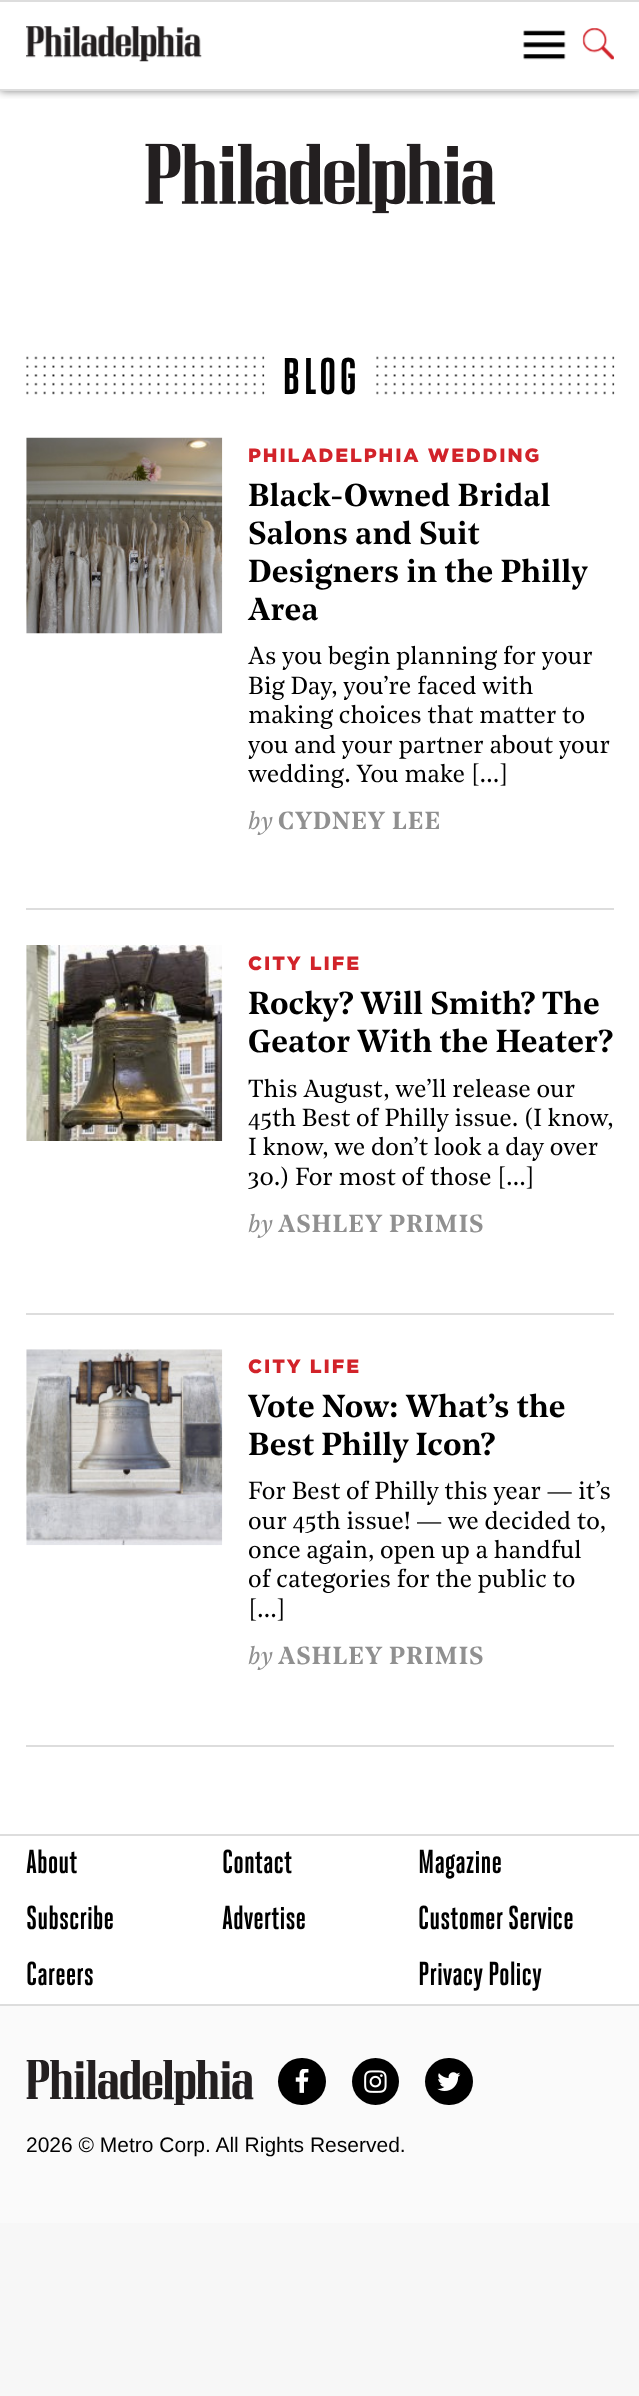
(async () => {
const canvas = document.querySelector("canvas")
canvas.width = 639
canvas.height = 2396
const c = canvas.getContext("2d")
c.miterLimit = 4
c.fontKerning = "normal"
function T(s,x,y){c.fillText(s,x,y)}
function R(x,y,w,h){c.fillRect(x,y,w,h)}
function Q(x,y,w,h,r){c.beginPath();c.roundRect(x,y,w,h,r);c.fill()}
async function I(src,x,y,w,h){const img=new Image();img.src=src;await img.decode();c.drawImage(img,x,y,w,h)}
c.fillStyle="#fff"
R(0,0,639,2396)
c.save()
c.beginPath()
c.rect(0,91,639,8)
c.clip()
c.fillStyle="#00000080"
c.filter="blur(4.5px)"
c.beginPath()
c.rect(0,0,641,91)
c.fill()
c.filter="none"
c.restore()
c.fillStyle="#ddd"
R(0,0,639,2)
R(0,89,639,2)
await I("1.png",26,26,176,36)
await I("2.png",523,30,43,30)
await I("3.png",582,28,32,32)
await I("4.png",145,143,350,71)
await I("5.png",26,356,239,39)
c.letterSpacing="2.5px"
c.font="600 49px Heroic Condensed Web"
c.fillStyle="#000"
T("BLOG",282,394)
await I("6.png",376,356,239,39)
c.fillStyle="#ddd"
R(26,908,588,2)
await I("7.png",26,437,197,197)
c.letterSpacing="1.9px"
c.font="900 19.25px Gotham"
c.fillStyle="#d2232a"
T("PHILADELPHIA WEDDING",248,462)
c.letterSpacing="0px"
c.font="600 31.5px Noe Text"
c.fillStyle="#000"
T("Black-Owned Bridal",248,506)
T("Salons and Suit",248,544)
T("Designers in the Philly",248,582)
T("Area",248,620)
c.font="24.5px Noe Text"
T("As you begin planning for your",248,664)
T("Big Day, you’re faced with",248,694)
T("making choices that matter to",248,723)
T("you and your partner about your",248,753)
T("wedding. You make […]",248,782)
c.font="italic 24.5px Noe Text"
c.fillStyle="#909090"
T("by",248,829)
c.letterSpacing="1px"
c.font="600 24.5px Noe Text"
T("CYDNEY LEE",278,829)
c.fillStyle="#ddd"
R(26,1313,588,2)
await I("8.png",26,945,197,196)
c.letterSpacing="1.9px"
c.font="900 19.25px Gotham"
c.fillStyle="#d2232a"
T("CITY LIFE",248,970)
c.letterSpacing="0px"
c.font="600 31.5px Noe Text"
c.fillStyle="#000"
T("Rocky? Will Smith? The",248,1014)
T("Geator With the Heater?",248,1052)
c.font="24.5px Noe Text"
T("This August, we’ll release our",248,1097)
T("45th Best of Philly issue. (I know,",248,1126)
T("I know, we don’t look a day over",248,1155)
T("30.) For most of those […]",248,1185)
c.font="italic 24.5px Noe Text"
c.fillStyle="#909090"
T("by",248,1232)
c.letterSpacing="1px"
c.font="600 24.5px Noe Text"
T("ASHLEY PRIMIS",278,1232)
c.fillStyle="#ddd"
R(26,1745,588,2)
await I("9.png",26,1349,197,197)
c.letterSpacing="1.9px"
c.font="900 19.25px Gotham"
c.fillStyle="#d2232a"
T("CITY LIFE",248,1373)
c.letterSpacing="0px"
c.font="600 31.5px Noe Text"
c.fillStyle="#000"
T("Vote Now: What’s the",248,1417)
T("Best Philly Icon?",248,1455)
c.font="24.5px Noe Text"
T("For Best of Philly this year — it’s",248,1499)
T("our 45th issue! — we decided to,",248,1529)
T("once again, open up a handful",248,1558)
T("of categories for the public to",248,1587)
T("[…]",248,1617)
c.font="italic 24.5px Noe Text"
c.fillStyle="#909090"
T("by",248,1664)
c.letterSpacing="1px"
c.font="600 24.5px Noe Text"
T("ASHLEY PRIMIS",278,1664)
c.fillStyle="#fafafa"
R(0,2006,639,217)
c.fillStyle="#ddd"
R(0,1834,639,2)
R(0,2004,639,2)
c.letterSpacing="0px"
c.font="600 31.5px Heroic Condensed Web"
c.fillStyle="#000"
T("About",26,1873)
T("Contact",222,1873)
T("Magazine",418,1873)
T("Subscribe",26,1929)
T("Advertise",222,1929)
T("Customer Service",418,1929)
T("Careers",26,1985)
T("Privacy Policy",418,1985)
await I("10.png",26,2060,228,45)
Q(278,2058,48,47,23.5)
await I("11.png",295,2069,14,24)
c.beginPath()
c.arc(375.5,2081.5,23.5,0,7)
c.fill()
await I("12.png",364,2070,23,23)
Q(425,2058,48,47,23.5)
await I("13.png",437,2072,24,19)
c.font="21px Liberation Sans"
T("2026 © Metro Corp. All Rights Reserved.",26,2152)
c.fillStyle="#f7f7f7"
R(0,2223,639,173)
})()
